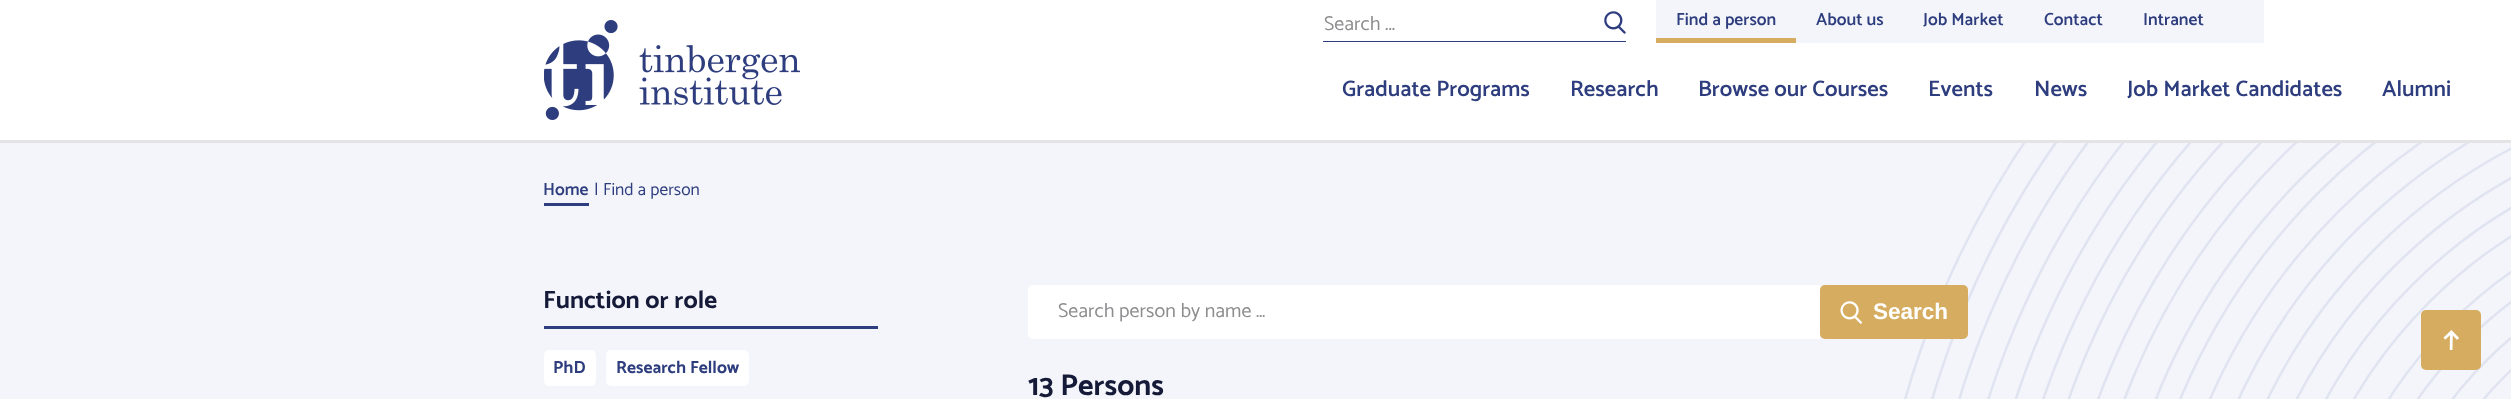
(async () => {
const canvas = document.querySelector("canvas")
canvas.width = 2511
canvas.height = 399
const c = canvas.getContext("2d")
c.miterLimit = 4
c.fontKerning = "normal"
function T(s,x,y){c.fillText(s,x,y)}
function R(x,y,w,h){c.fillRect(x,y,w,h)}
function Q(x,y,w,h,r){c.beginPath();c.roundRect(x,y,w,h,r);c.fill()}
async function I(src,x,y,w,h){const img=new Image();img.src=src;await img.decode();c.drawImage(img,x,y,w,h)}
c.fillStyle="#f3f5fa"
R(0,0,2511,399)
await I("1.png",1904,143,607,256)
c.fillStyle="#fff"
R(0,0,2511,140)
c.fillStyle="#e4e4e4"
R(0,140,2511,3)
await I("2.png",544,20,256,100)
c.fillStyle="#2e3d7e"
R(1323,41,303,1)
c.font="20px Catamaran"
c.fillStyle="#8d8c8f"
T("Search ...",1324,30)
await I("3.png",1604,11,22,23)
c.fillStyle="#f3f5fa"
R(1656,0,608,43)
c.fillStyle="#d6ad60"
R(1656,38,140,5)
c.font="600 17.5px Catamaran"
c.fillStyle="#2e3d7e"
T("Find a person",1676,25)
T("About us",1816,25)
T("Job Market",1923,25)
T("Contact",2044,25)
T("Intranet",2143,25)
c.font="600 22.5px Catamaran"
T("Graduate Programs",1342,96)
T("Research",1570,96)
T("Browse our Courses",1698,96)
T("Events",1928,96)
T("News",2034,96)
T("Job Market Candidates",2127,96)
T("Alumni",2382,96)
R(544,203,45,3)
c.font="600 17.5px Catamaran"
T("Home",543,195)
c.font="17.5px Catamaran"
T("|",594,195)
T("Find a person",603,195)
R(544,326,334,3)
c.font="bold 25px Catamaran"
c.fillStyle="#141a37"
T("Function or role",543,308)
c.fillStyle="#fff"
Q(544,350,52,36,5)
c.font="bold 17.5px Catamaran"
c.fillStyle="#2e3d7e"
T("PhD",553,373)
c.fillStyle="#fff"
Q(606,350,143,36,5)
c.fillStyle="#2e3d7e"
T("Research Fellow",616,373)
c.fillStyle="#fff"
c.beginPath()
c.roundRect(1028,285,792,54,[5,0,0,5])
c.fill()
c.font="20px Catamaran"
c.fillStyle="#8d8c8f"
T("Search person by name …",1058,317)
c.fillStyle="#d6ad60"
Q(1820,285,148,54,5)
await I("4.png",1840,301,22,23)
c.font="bold 22.5px Liberation Sans"
c.fillStyle="#fff"
T("Search",1873,319)
c.font="bold 30px Catamaran"
c.fillStyle="#141a37"
T("13 Persons",1028,395)
c.fillStyle="#d6ad60"
Q(2421,310,60,60,5)
await I("5.png",2443,330,16,20)
})()
